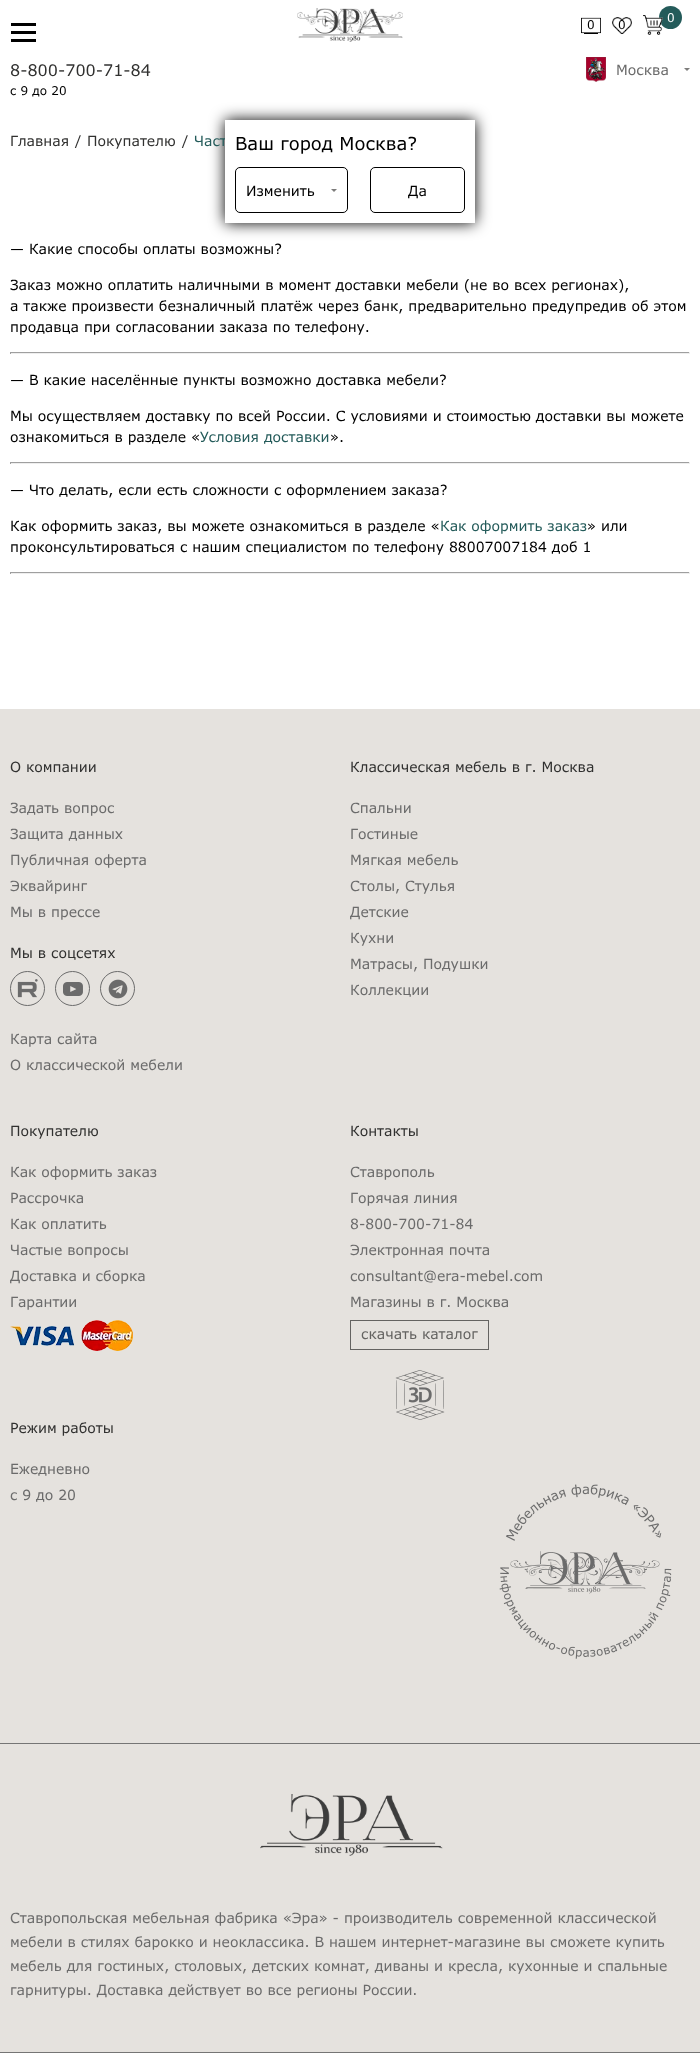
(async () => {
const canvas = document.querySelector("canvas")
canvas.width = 700
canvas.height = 2053
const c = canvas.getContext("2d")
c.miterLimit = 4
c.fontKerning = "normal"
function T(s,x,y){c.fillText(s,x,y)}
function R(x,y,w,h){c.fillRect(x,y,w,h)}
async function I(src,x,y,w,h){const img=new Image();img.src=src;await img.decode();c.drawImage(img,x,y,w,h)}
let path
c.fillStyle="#fff"
R(0,0,700,2053)
c.fillStyle="#000"
R(11,31,25,3)
R(11,23,25,3)
R(11,39,25,3)
await I("2.png",298,8,105,34)
await I("1.png",297,8,106,24)
c.fillStyle="#245b5a"
c.beginPath()
c.arc(670.5,17.5,11.5,0,7)
c.fill()
await I("3.png",643,15,20,20)
c.font="12px Verdana"
c.fillStyle="#fff"
T("0",667,22)
await I("4.png",581,17,20,17)
c.fillStyle="#000"
T("0",587,29)
await I("5.png",612,17,20,17)
T("0",618,29)
c.font="16px Verdana"
c.fillStyle="#313130"
T("8-800-700-71-84",10,76)
await I("6.png",586,57,20,25)
c.font="14px Verdana"
c.fillStyle="#6b6b6b"
T("Москва",616,75)
c.fillStyle="#7d7c7b"
path = new Path2D("M684 68h6l-3 3z")
c.fill(path)
c.fillStyle="#000"
c.filter="blur(7.5px)"
c.beginPath()
c.rect(225,120,250,103)
c.fill()
c.filter="none"
c.fillStyle="#245b5a"
T("Част",194,146)
c.fillStyle="#fff"
R(225,120,250,103)
c.font="18px Verdana"
c.fillStyle="#000"
T("Ваш город Москва?",235,150)
c.beginPath()
c.roundRect(235.5,167.5,112,45,4.5)
c.strokeStyle="#000"
c.stroke()
c.font="14px Verdana"
T("Изменить",246,196)
c.fillStyle="#7d7c7b"
path = new Path2D("M331 189h6l-3 3z")
c.fill(path)
c.beginPath()
c.roundRect(370.5,167.5,94,45,4.5)
c.stroke()
c.fillStyle="#000"
T("Да",408,196)
c.font="12px Verdana"
T("c 9 до 20",10,95)
c.font="14px Verdana"
c.fillStyle="#313130"
T("Главная",10,146)
T("/",75,146)
T("Покупателю",87,146)
T("/",182,146)
c.fillStyle="#000"
T("— Какие способы оплаты возможны?",10,254)
T("Заказ можно оплатить наличными в момент доставки мебели (не во всех регионах),",10,290)
T("а также произвести безналичный платёж через банк, предварительно предупредив об этом",10,311)
T("продавца при согласовании заказа по телефону.",10,332)
c.fillStyle="#9f9f9f"
R(10,352,680,1)
c.fillStyle="#eee"
R(689,352,1,2)
R(10,353,680,1)
c.fillStyle="#9f9f9f"
R(10,352,1,2)
c.fillStyle="#000"
T("— В какие населённые пункты возможно доставка мебели?",10,385)
T("Мы осуществляем доставку по всей России. С условиями и стоимостью доставки вы можете",10,421)
T("ознакомиться в разделе «",10,442)
c.fillStyle="#245b5a"
T("Условия доставки",200,442)
c.fillStyle="#000"
T("».",330,442)
c.fillStyle="#9f9f9f"
R(10,462,680,1)
c.fillStyle="#eee"
R(689,462,1,2)
R(10,463,680,1)
c.fillStyle="#9f9f9f"
R(10,462,1,2)
c.fillStyle="#000"
T("— Что делать, если есть сложности с оформлением заказа?",10,495)
T("Как оформить заказ, вы можете ознакомиться в разделе «",10,531)
c.fillStyle="#245b5a"
T("Как оформить заказ",440,531)
c.fillStyle="#000"
T("» или",587,531)
T("проконсультироваться с нашим специалистом по телефону 88007007184 доб 1",10,552)
c.fillStyle="#9f9f9f"
R(10,572,680,1)
c.fillStyle="#eee"
R(689,572,1,2)
R(10,573,680,1)
c.fillStyle="#9f9f9f"
R(10,572,1,2)
c.fillStyle="#e5e2de"
R(0,709,700,1343)
c.fillStyle="#757575"
R(0,1743,700,1)
c.fillStyle="#313130"
T("О компании",10,772)
c.fillStyle="#6b6b6b"
T("Задать вопрос",10,813)
T("Защита данных",10,839)
T("Публичная оферта",10,865)
T("Эквайринг",10,891)
T("Мы в прессе",10,917)
c.fillStyle="#313130"
T("Мы в соцсетях",10,958)
c.beginPath()
c.arc(27.5,988.5,17,0,7)
c.strokeStyle="#6b6b6b"
c.stroke()
await I("7.png",17,979,21,19)
c.beginPath()
c.arc(72.5,988.5,17,0,7)
c.stroke()
await I("8.png",63,982,20,14)
c.beginPath()
c.arc(117.5,988.5,17,0,7)
c.stroke()
await I("9.png",108,979,20,20)
c.fillStyle="#6b6b6b"
T("Карта сайта",10,1044)
T("О классической мебели",10,1070)
c.fillStyle="#313130"
T("Классическая мебель в г. Москва",350,772)
c.fillStyle="#6b6b6b"
T("Спальни",350,813)
T("Гостиные",350,839)
T("Мягкая мебель",350,865)
T("Столы, Стулья",350,891)
T("Детские",350,917)
T("Кухни",350,943)
T("Матрасы, Подушки",350,969)
T("Коллекции",350,995)
c.fillStyle="#313130"
T("Покупателю",10,1136)
c.fillStyle="#6b6b6b"
T("Как оформить заказ",10,1177)
T("Рассрочка",10,1203)
T("Как оплатить",10,1229)
T("Частые вопросы",10,1255)
T("Доставка и сборка",10,1281)
T("Гарантии",10,1307)
await I("10.png",10,1320,123,31)
c.fillStyle="#313130"
T("Контакты",350,1136)
c.fillStyle="#6b6b6b"
T("Ставрополь",350,1177)
T("Горячая линия",350,1203)
T("8-800-700-71-84",350,1229)
T("Электронная почта",350,1255)
T("consultant@era-mebel.com",350,1281)
T("Магазины в г. Москва",350,1307)
c.strokeStyle="#646361"
c.strokeRect(350.5,1320.5,138,29)
c.fillStyle="#646361"
T("скачать каталог",361,1339)
await I("11.png",395,1370,50,50)
c.fillStyle="#313130"
T("Режим работы",10,1433)
c.fillStyle="#6b6b6b"
T("Ежедневно",10,1474)
T("c 9 до 20",10,1500)
await I("12.png",499,1484,173,175)
c.fillStyle="#757575"
R(0,2052,700,1)
await I("13.png",260,1794,183,62)
c.fillStyle="#6b6b6b"
T("Ставропольская мебельная фабрика «Эра» - производитель современной классической",10,1923)
T("мебели в стилях барокко и неоклассика. В нашем интернет-магазине вы сможете купить",10,1947)
T("мебель для гостиных, столовых, детских комнат, диваны и кресла, кухонные и спальные",10,1971)
T("гарнитуры. Доставка действует во все регионы России.",10,1995)
})()
